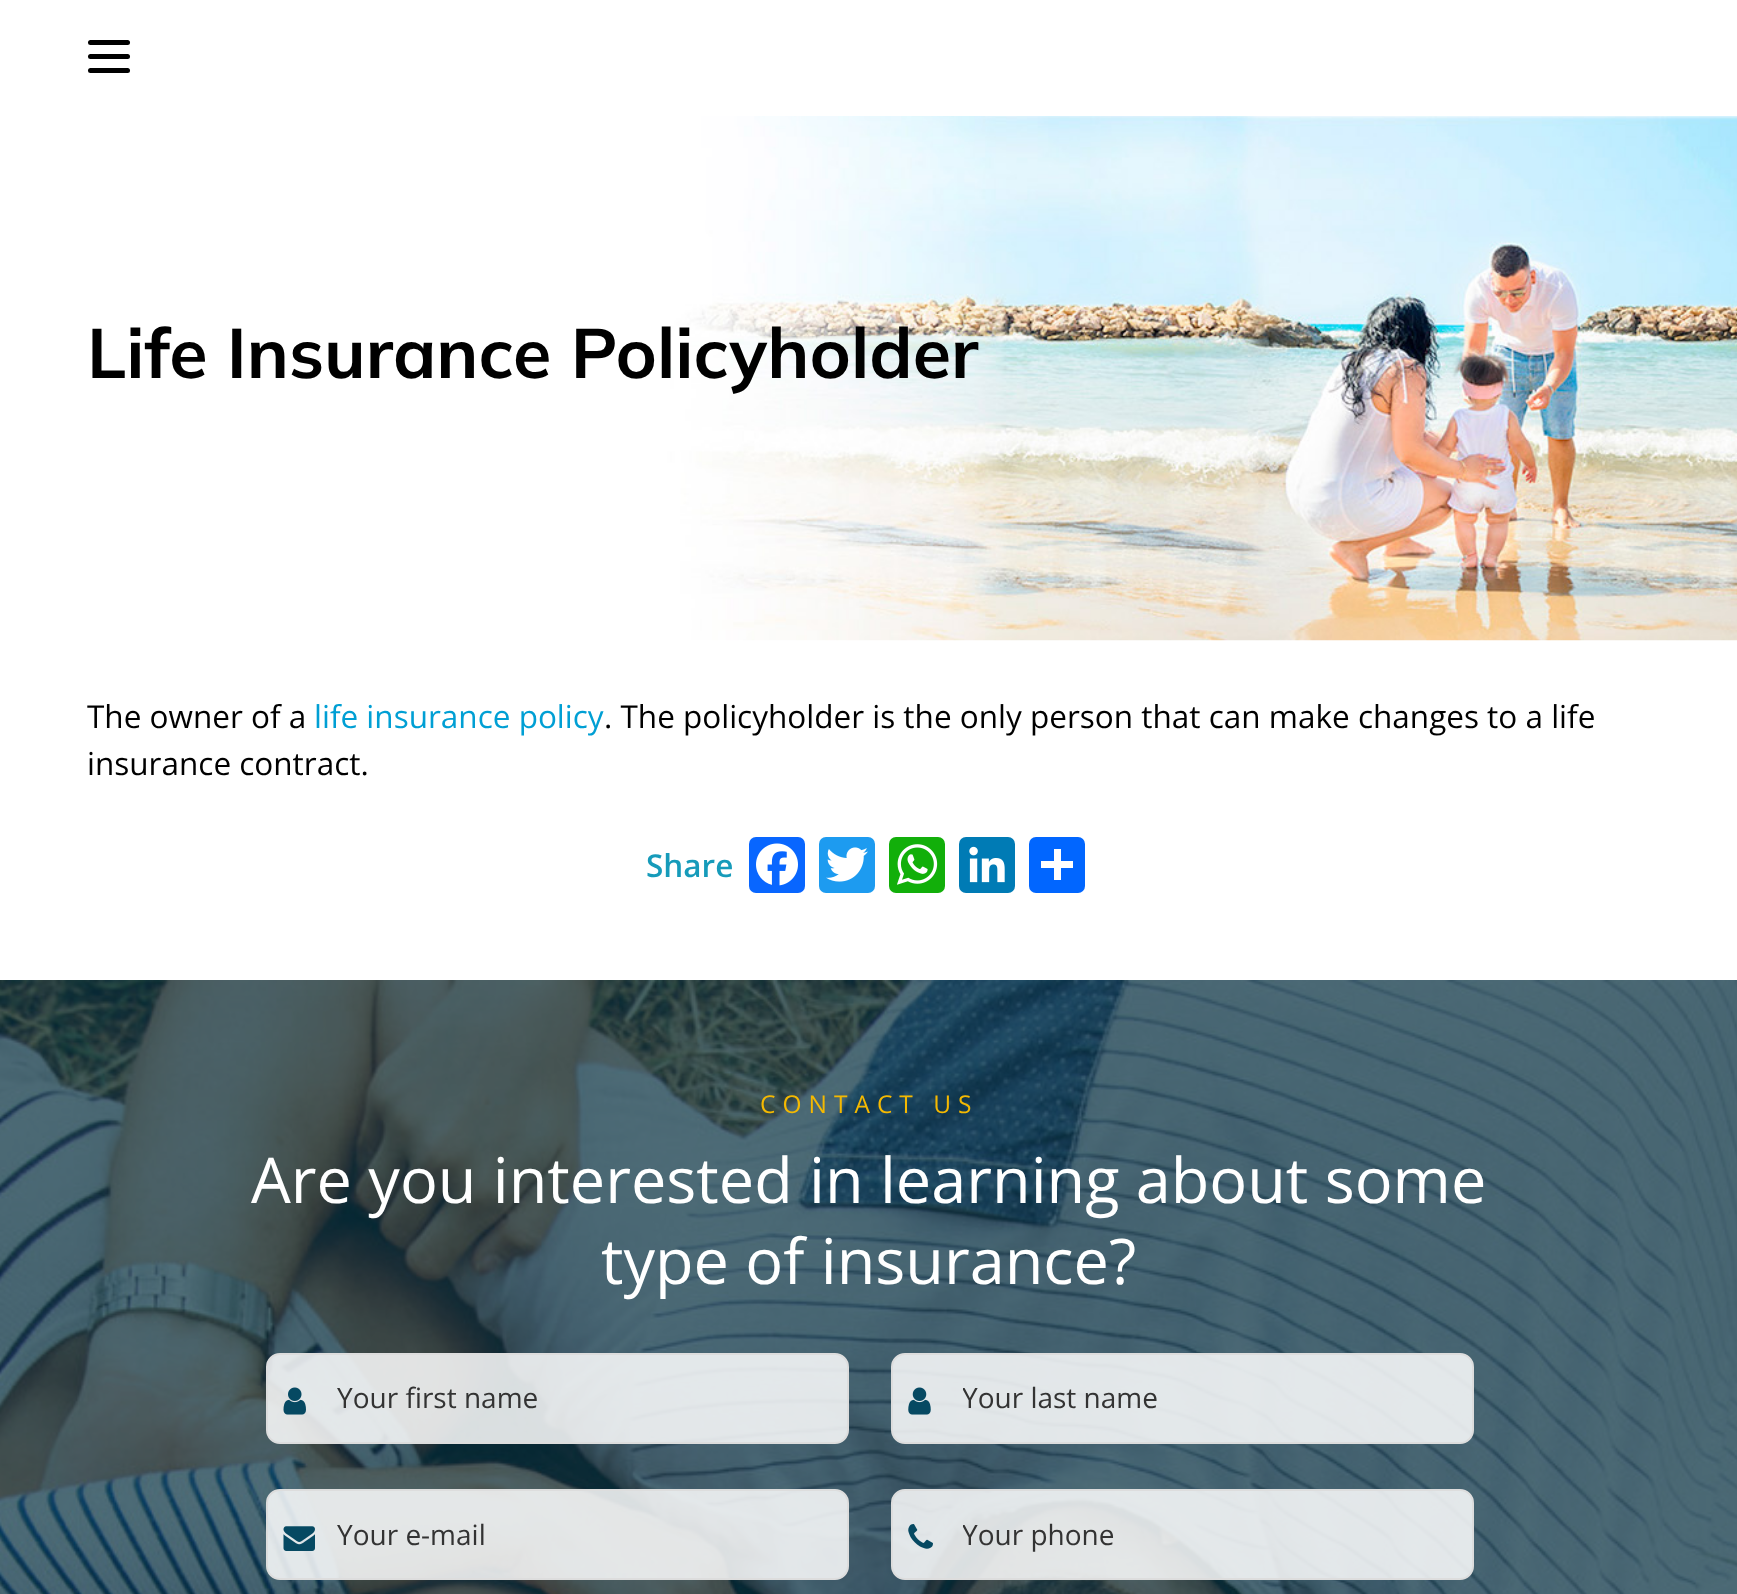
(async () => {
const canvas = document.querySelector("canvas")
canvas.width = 1737
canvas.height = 1594
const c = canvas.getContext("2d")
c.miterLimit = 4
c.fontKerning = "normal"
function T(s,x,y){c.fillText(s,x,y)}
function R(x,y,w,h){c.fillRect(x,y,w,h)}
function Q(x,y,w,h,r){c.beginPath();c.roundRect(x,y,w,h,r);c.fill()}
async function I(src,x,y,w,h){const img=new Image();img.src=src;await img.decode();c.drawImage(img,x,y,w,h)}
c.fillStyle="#fff"
R(0,0,1737,1594)
c.fillStyle="#000"
Q(88,40,42,5,2.5)
Q(88,54,42,5,2.5)
Q(88,68,42,5,2.5)
await I("1.png",0,116,1737,525)
c.font="bold 70px Mulish"
T("Life Insurance Policyholder",87,378)
c.font="31.5px Open Sans"
T("The owner of a",87,728)
c.fillStyle="#009fd4"
T("life insurance policy",314,728)
c.fillStyle="#000"
T(". The policyholder is the only person that can make changes to a life",604,728)
T("insurance contract.",87,775)
c.font="600 31.5px Open Sans"
c.fillStyle="#169bba"
T("Share",646,877)
c.fillStyle="#0866ff"
Q(749,837,56,56,7)
await I("2.png",756,843,42,43)
c.fillStyle="#1d9bf0"
Q(819,837,56,56,7)
await I("3.png",826,847,42,35)
c.fillStyle="#12af0a"
Q(889,837,56,56,7)
await I("4.png",897,844,41,41)
c.fillStyle="#007bb5"
Q(959,837,56,56,7)
await I("5.png",969,846,36,37)
c.fillStyle="#0166ff"
Q(1029,837,56,56,7)
c.fillStyle="#fff"
R(1054,849,7,31)
R(1041,861,32,7)
await I("6.png",0,980,1737,614)
c.letterSpacing="7px"
c.font="24.5px Open Sans"
c.fillStyle="#f5b901"
T("CONTACT US",760,1113)
c.letterSpacing="0px"
c.font="63px Open Sans"
c.fillStyle="#fff"
T("Are you interested in learning about some",251,1203)
T("type of insurance?",601,1284)
c.fillStyle="#ffffffd9"
c.beginPath()
c.roundRect(267,1354,581,89,13)
c.fill()
c.strokeStyle="#ddd"
c.lineWidth=2
c.stroke()
await I("7.png",283,1387,23,28)
c.font="28px Open Sans"
c.fillStyle="#333"
T("Your first name",337,1408)
c.fillStyle="#ffffffd9"
c.beginPath()
c.roundRect(892,1354,581,89,13)
c.fill()
c.stroke()
await I("8.png",908,1387,23,28)
c.save()
c.beginPath()
c.rect(963,1379,495,39)
c.clip()
c.fillStyle="#333"
T("Your last name",962,1408)
c.restore()
c.beginPath()
c.roundRect(267,1490,581,89,13)
c.fill()
c.stroke()
await I("9.png",283,1526,32,25)
c.fillStyle="#333"
T("Your e-mail",337,1545)
c.fillStyle="#ffffffd9"
c.beginPath()
c.roundRect(892,1490,581,89,13)
c.fill()
c.stroke()
await I("10.png",908,1524,25,25)
c.save()
c.beginPath()
c.rect(963,1516,495,38)
c.clip()
c.fillStyle="#333"
T("Your phone",962,1545)
c.restore()
})()
